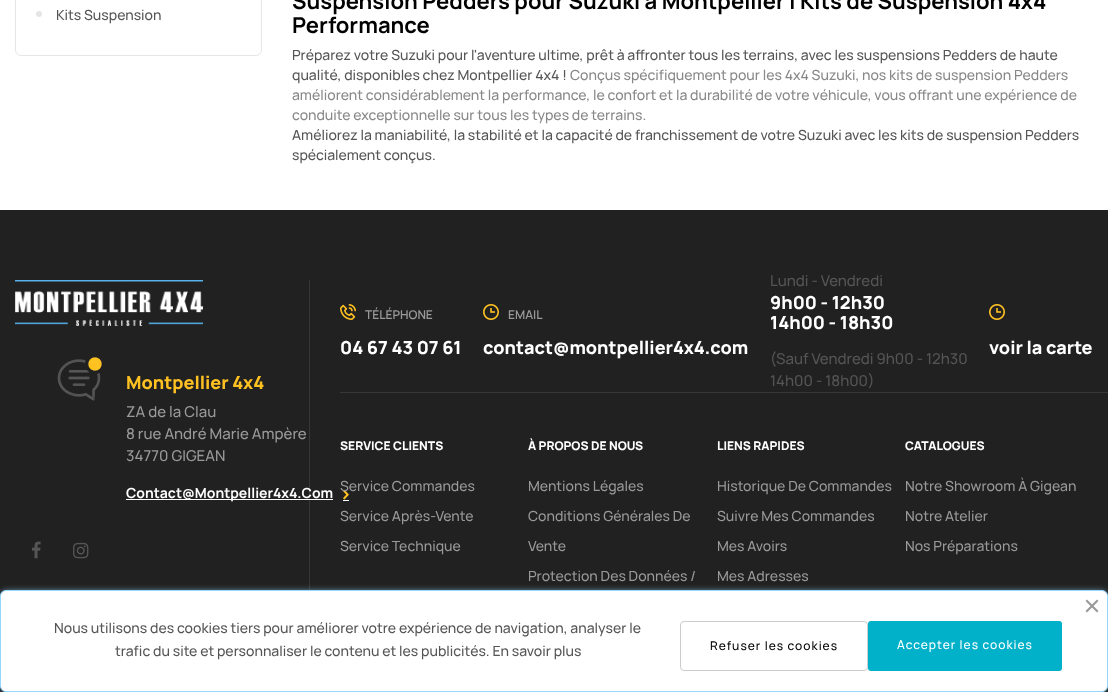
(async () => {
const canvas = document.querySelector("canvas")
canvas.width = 1108
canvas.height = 692
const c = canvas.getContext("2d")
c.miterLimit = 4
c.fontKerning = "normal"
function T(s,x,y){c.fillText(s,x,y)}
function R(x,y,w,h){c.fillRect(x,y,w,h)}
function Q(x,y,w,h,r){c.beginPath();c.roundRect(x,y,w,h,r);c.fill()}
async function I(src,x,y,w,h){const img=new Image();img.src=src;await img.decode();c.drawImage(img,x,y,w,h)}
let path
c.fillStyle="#fff"
R(0,0,1108,692)
c.beginPath()
c.roundRect(15.5,-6.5,246,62,5.5)
c.strokeStyle="#e6e6e6"
c.stroke()
c.fillStyle="#e5e5e5"
c.beginPath()
c.arc(39,14,3,0,7)
c.fill()
c.font="500 14px Manrope"
c.fillStyle="#555"
T("Kits Suspension",56,20)
c.font="bold 22px Manrope"
c.fillStyle="#000"
T("Suspension Pedders pour Suzuki à Montpellier | Kits de Suspension 4x4",292,9)
T("Performance",292,33)
c.font="500 14px Manrope"
c.fillStyle="#555"
T("Préparez votre Suzuki pour l'aventure ultime, prêt à affronter tous les terrains, avec les suspensions Pedders de haute",292,60)
T("qualité, disponibles chez Montpellier 4x4 !",292,80)
c.fillStyle="#888"
T("Conçus spécifiquement pour les 4x4 Suzuki, nos kits de suspension Pedders",570,80)
T("améliorent considérablement la performance, le confort et la durabilité de votre véhicule, vous offrant une expérience de",292,100)
T("conduite exceptionnelle sur tous les types de terrains.",292,120)
c.fillStyle="#555"
T("Améliorez la maniabilité, la stabilité et la capacité de franchissement de votre Suzuki avec les kits de suspension Pedders",292,140)
T("spécialement conçus.",292,160)
c.fillStyle="#212121"
R(0,210,1108,482)
c.fillStyle="#373737"
R(340,392,768,1)
await I("1.png",340,304,16,16)
c.font="600 12px Manrope"
c.fillStyle="#999"
T("TÉLÉPHONE",365,319)
c.font="800 18px Manrope"
c.fillStyle="#fff"
T("04 67 43 07 61",340,354)
await I("2.png",483,304,16,16)
c.font="600 12px Manrope"
c.fillStyle="#999"
T("EMAIL",508,319)
c.font="800 18px Manrope"
c.fillStyle="#fff"
T("contact@montpellier4x4.com",483,354)
c.font="500 15px Manrope"
c.fillStyle="#555"
T("Lundi - Vendredi",770,286)
c.font="800 18px Manrope"
c.fillStyle="#fff"
T("9h00 - 12h30",770,309)
T("14h00 - 18h30",770,329)
c.font="500 15px Manrope"
c.fillStyle="#555"
T("(Sauf Vendredi 9h00 - 12h30",770,364)
T("14h00 - 18h00)",770,386)
await I("2.png",989,304,16,16)
c.font="800 18px Manrope"
c.fillStyle="#fff"
T("voir la carte",989,354)
c.fillStyle="#373737"
R(309,280,1,310)
await I("3.png",15,280,188,46)
await I("4.png",57,357,45,44)
c.fillStyle="#ffc122"
T("Montpellier 4x4",126,389)
c.font="500 15px Manrope"
c.fillStyle="#999"
T("ZA de la Clau",126,417)
T("8 rue André Marie Ampère",126,439)
T("34770 GIGEAN",126,461)
c.fillStyle="#fff"
R(126,499,207,1)
c.font="bold 14px Manrope"
T("Contact@Montpellier4x4.Com",126,498)
R(343,500,6,1)
await I("5.png",343,489,6,11)
await I("6.png",32,541,9,18)
await I("7.png",73,542,16,17)
c.font="800 12px Manrope"
T("SERVICE CLIENTS",340,450)
c.font="500 14px Manrope"
c.fillStyle="#999"
T("Service Commandes",340,491)
T("Service Après-Vente",340,521)
T("Service Technique",340,551)
c.font="800 12px Manrope"
c.fillStyle="#fff"
T("À PROPOS DE NOUS",528,450)
c.font="500 14px Manrope"
c.fillStyle="#999"
T("Mentions Légales",528,491)
T("Conditions Générales De",528,521)
T("Vente",528,551)
T("Protection Des Données /",528,581)
c.font="800 12px Manrope"
c.fillStyle="#fff"
T("LIENS RAPIDES",717,450)
c.font="500 14px Manrope"
c.fillStyle="#999"
T("Historique De Commandes",717,491)
T("Suivre Mes Commandes",717,521)
T("Mes Avoirs",717,551)
T("Mes Adresses",717,581)
c.font="800 12px Manrope"
c.fillStyle="#fff"
T("CATALOGUES",905,450)
c.font="500 14px Manrope"
c.fillStyle="#999"
T("Notre Showroom À Gigean",905,491)
T("Notre Atelier",905,521)
T("Nos Préparations",905,551)
c.fillStyle="#96d7ff"
c.filter="blur(3.5px)"
c.beginPath()
c.roundRect(2,592,1104,98,4)
c.fill()
c.filter="none"
c.fillStyle="#fff"
c.beginPath()
c.roundRect(.5,590.5,1107,101,5.5)
c.fill()
c.strokeStyle="#96d7ff"
c.stroke()
c.fillStyle="#999"
path = new Path2D("M1085.5 611l11.5-11.5l1.5 1.5l-11.5 11.5z")
c.fill(path)
path = new Path2D("M1087 599.5l11.5 11.5l-1.5 1.5l-11.5-11.5z")
c.fill(path)
c.fillStyle="#555"
T("Nous utilisons des cookies tiers pour améliorer votre expérience de navigation, analyser le",54,633)
T("trafic du site et personnaliser le contenu et les publicités. En savoir plus",115,656)
c.beginPath()
c.roundRect(680.5,621.5,187,49,3.5)
c.strokeStyle="#ccc"
c.stroke()
c.letterSpacing="1px"
c.font="500 12px Manrope"
c.fillStyle="#000"
T("Refuser les cookies",710,650)
c.fillStyle="#00b1c9"
Q(868,621,194,50,3)
c.fillStyle="#fff"
T("Accepter les cookies",897,649)
})()
